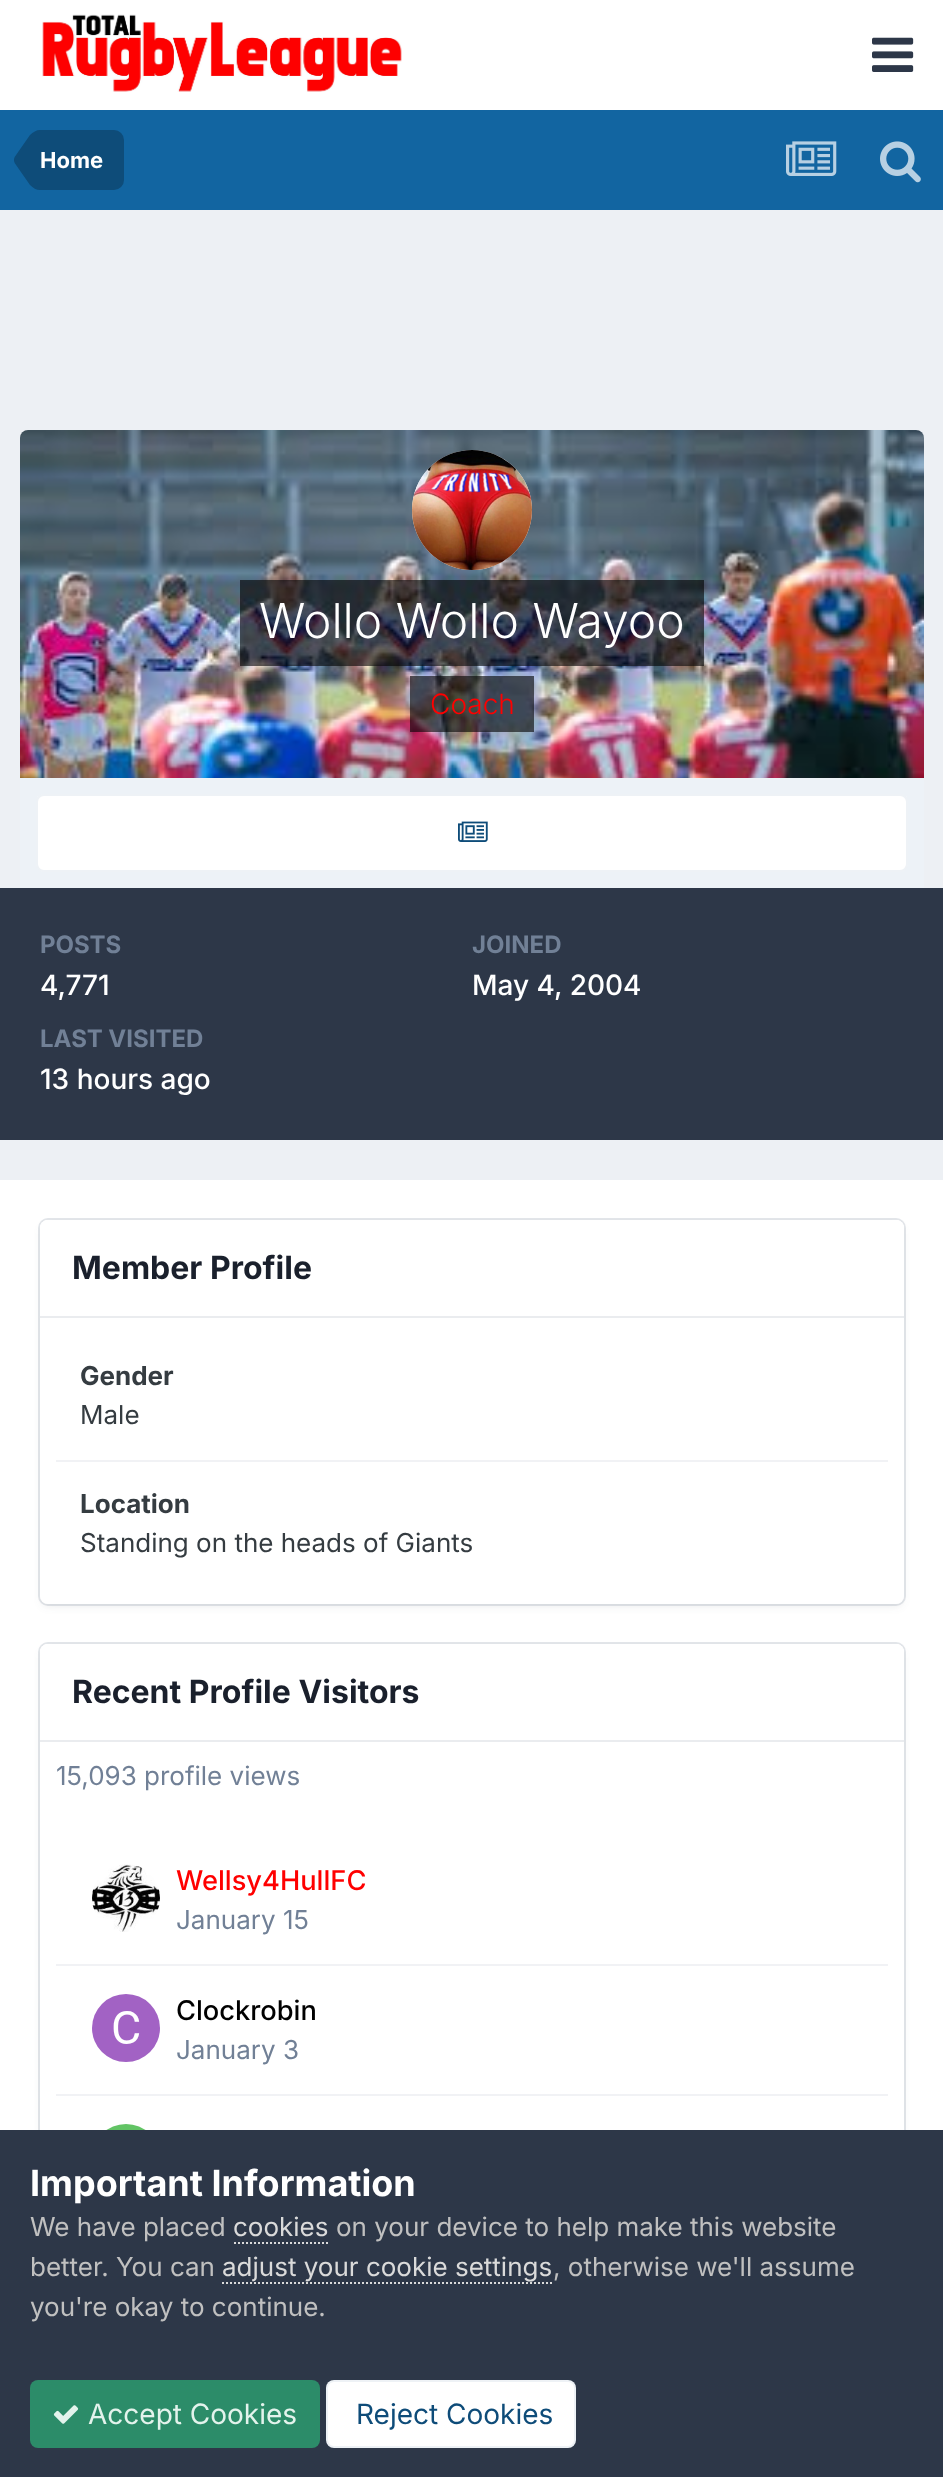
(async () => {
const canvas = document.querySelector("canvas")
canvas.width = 943
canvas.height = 2477
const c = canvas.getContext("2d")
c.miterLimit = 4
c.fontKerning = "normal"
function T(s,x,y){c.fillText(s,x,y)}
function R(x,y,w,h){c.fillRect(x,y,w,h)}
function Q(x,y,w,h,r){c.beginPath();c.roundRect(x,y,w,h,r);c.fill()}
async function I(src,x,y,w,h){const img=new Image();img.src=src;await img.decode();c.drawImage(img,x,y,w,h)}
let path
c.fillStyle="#edf0f4"
R(0,0,943,2477)
c.fillStyle="#fff"
R(0,0,943,110)
await I("1.png",42,14,360,78)
await I("2.png",872,37,42,35)
c.fillStyle="#1265a1"
R(0,110,943,100)
c.fillStyle="#0e4c79"
c.beginPath()
c.roundRect(40,130,84,60,[0,10,10,0])
c.fill()
path = new Path2D("M40 160v30c-3.5 0-7-2-10-5l-15-21.5c-.5-1-1-2-1-3.5zm0 0h-26c0-1.5 .5-2.5 1-3.5l15-21.5c3-3 6.5-5 10-5z")
c.fill(path)
c.font="bold 22px Inter"
c.fillStyle="#fff"
T("Home",40,168)
await I("3.png",786,141,51,35)
await I("4.png",880,141,41,42)
await I("5.png",20,430,904,348)
c.beginPath()
c.arc(472,510,60,0,7)
c.fill()
await I("6.png",412,450,120,120)
c.fillStyle="#00000099"
R(240,580,464,86)
c.font="300 48px Inter"
c.fillStyle="#fff"
T("Wollo Wollo Wayoo",259,638)
c.fillStyle="#00000099"
R(410,676,124,56)
c.font="300 28px Inter"
c.fillStyle="#f00"
T("Coach",430,714)
c.fillStyle="#edf2f7"
R(20,778,904,110)
c.fillStyle="#fff"
Q(36,794,872,78,8)
c.beginPath()
c.roundRect(37,795,870,76,7)
c.strokeStyle="#0e4c7912"
c.lineWidth=2
c.stroke()
await I("7.png",458,821,30,21)
c.fillStyle="#2d3748"
R(0,888,943,252)
c.font="bold 24px Inter"
c.fillStyle="#718096"
T("POSTS",40,953)
c.font="500 28px Inter"
c.fillStyle="#fff"
T("4,771",40,995)
c.font="bold 24px Inter"
c.fillStyle="#718096"
T("JOINED",472,953)
c.font="500 28px Inter"
c.fillStyle="#fff"
T("May 4, 2004",472,995)
c.font="bold 24px Inter"
c.fillStyle="#718096"
T("LAST VISITED",40,1047)
c.font="500 28px Inter"
c.fillStyle="#fff"
T("13 hours ago",40,1089)
R(0,1180,943,950)
c.fillStyle="#2d37481a"
c.filter="blur(4px)"
c.beginPath()
c.roundRect(42,1226,860,380,6)
c.fill()
c.filter="none"
c.beginPath()
c.roundRect(39,1219,866,386,9)
c.strokeStyle="#71809633"
c.stroke()
c.fillStyle="#fff"
Q(40,1220,864,384,8)
c.beginPath()
c.roundRect(40,1220,864,98,[8,8,0,0])
c.fill()
c.fillStyle="#eaecef"
R(40,1316,864,2)
c.font="bold 32px Inter"
c.fillStyle="#1a202c"
T("Member Profile",72,1279)
c.fillStyle="#f1f2f5"
R(56,1460,832,2)
c.font="bold 26px Inter"
c.fillStyle="#353c41"
T("Gender",80,1385)
c.font="26px Inter"
T("Male",80,1424)
c.font="bold 26px Inter"
T("Location",80,1513)
c.font="26px Inter"
T("Standing on the heads of Giants",80,1552)
c.fillStyle="#2d37481a"
c.filter="blur(4px)"
c.beginPath()
c.roundRect(42,1650,860,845,6)
c.fill()
c.filter="none"
c.beginPath()
c.roundRect(39,1643,866,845,9)
c.stroke()
c.fillStyle="#fff"
Q(40,1644,864,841,8)
c.beginPath()
c.roundRect(40,1644,864,98,[8,8,0,0])
c.fill()
c.fillStyle="#eaecef"
R(40,1740,864,2)
c.font="bold 32px Inter"
c.fillStyle="#1a202c"
T("Recent Profile Visitors",72,1703)
c.font="26px Inter"
c.fillStyle="#718096"
T("15,093 profile views",56,1785)
c.fillStyle="#f1f2f5"
R(56,1964,832,2)
await I("8.png",92,1864,68,68)
c.font="500 27.25px Inter"
c.fillStyle="#f00"
T("Wellsy4HullFC",176,1890)
c.font="26px Inter"
c.fillStyle="#718096"
T("January 15",176,1929)
c.fillStyle="#f1f2f5"
R(56,2094,832,2)
await I("9.png",92,1994,68,68)
c.font="500 27.25px Inter"
c.fillStyle="#000"
T("Clockrobin",176,2020)
c.font="26px Inter"
c.fillStyle="#718096"
T("January 3",176,2059)
await I("10.png",106,2124,40,6)
c.fillStyle="#2d3748"
R(0,2130,943,347)
c.font="bold 36px Inter"
c.fillStyle="#fff"
T("Important Information",30,2196)
c.font="26px Inter"
c.fillStyle="#c0c0c0"
T("We have placed",30,2236)
c.fillStyle="#dadada"
T("cookies",233,2236)
path = new Path2D("M234 2243h94")
c.strokeStyle="#dadada"
c.setLineDash([2,2])
c.stroke(path)
c.fillStyle="#c0c0c0"
T("on your device to help make this website",336,2236)
T("better. You can",30,2276)
c.fillStyle="#dadada"
T("adjust your cookie settings",222,2276)
path = new Path2D("M222 2283h330")
c.stroke(path)
c.fillStyle="#c0c0c0"
T(", otherwise we'll assume",553,2276)
T("you're okay to continue.",30,2316)
c.fillStyle="#2c8c69"
Q(30,2380,290,68,8)
await I("11.png",53,2405,26,19)
c.font="28px Inter"
c.fillStyle="#e3f3ec"
T("Accept Cookies",88,2424)
c.fillStyle="#fff"
Q(326,2380,250,68,8)
c.beginPath()
c.roundRect(327,2381,248,66,7)
c.strokeStyle="#0e4c7912"
c.setLineDash([])
c.stroke()
c.fillStyle="#0e4c79"
T("Reject Cookies",356,2424)
})()
